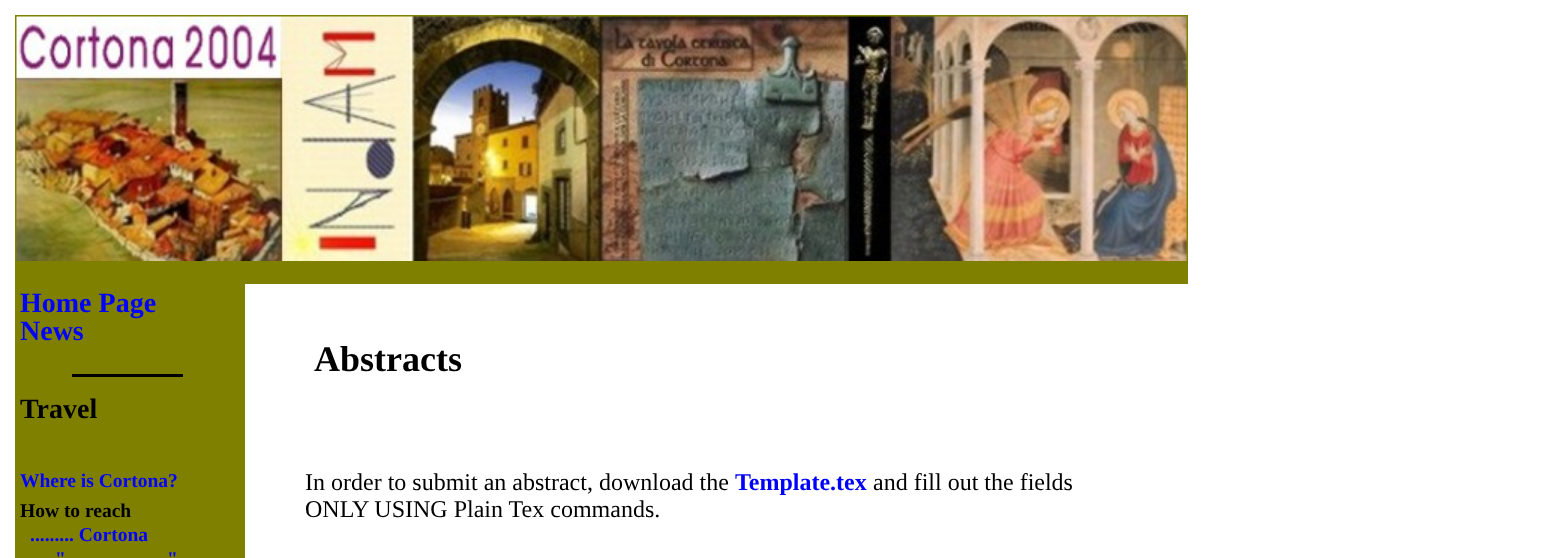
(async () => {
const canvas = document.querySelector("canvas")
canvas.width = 1542
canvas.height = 558
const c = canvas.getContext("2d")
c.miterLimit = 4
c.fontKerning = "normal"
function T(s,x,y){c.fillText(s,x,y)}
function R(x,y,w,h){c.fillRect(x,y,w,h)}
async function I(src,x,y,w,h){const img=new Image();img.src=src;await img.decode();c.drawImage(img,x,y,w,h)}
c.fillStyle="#fff"
R(0,0,1542,558)
c.fillStyle="#808000"
R(15,15,1173,269)
await I("1.png",16,16,1171,245)
R(15,284,230,274)
c.font="bold 28px Liberation Serif"
c.fillStyle="#00f"
T("Home Page",20,312)
T("News",20,340)
c.fillStyle="#000"
R(72,374,111,3)
T("Travel",20,418)
c.font="bold 19.5px Liberation Serif"
c.fillStyle="#00f"
T("Where is Cortona?",20,487)
c.fillStyle="#000"
T("How to reach",20,517)
c.fillStyle="#00f"
T("......... Cortona",30,541)
T("\"",55,565)
T("\"",167,565)
c.font="bold 36px Liberation Serif"
c.fillStyle="#000"
T("Abstracts",314,371)
c.font="24px Liberation Serif"
T("In order to submit an abstract, download the",305,490)
c.font="bold 24px Liberation Serif"
c.fillStyle="#00f"
T("Template.tex",735,490)
c.font="24px Liberation Serif"
c.fillStyle="#000"
T("and fill out the fields",873,490)
T("ONLY USING Plain Tex commands.",305,517)
})()
